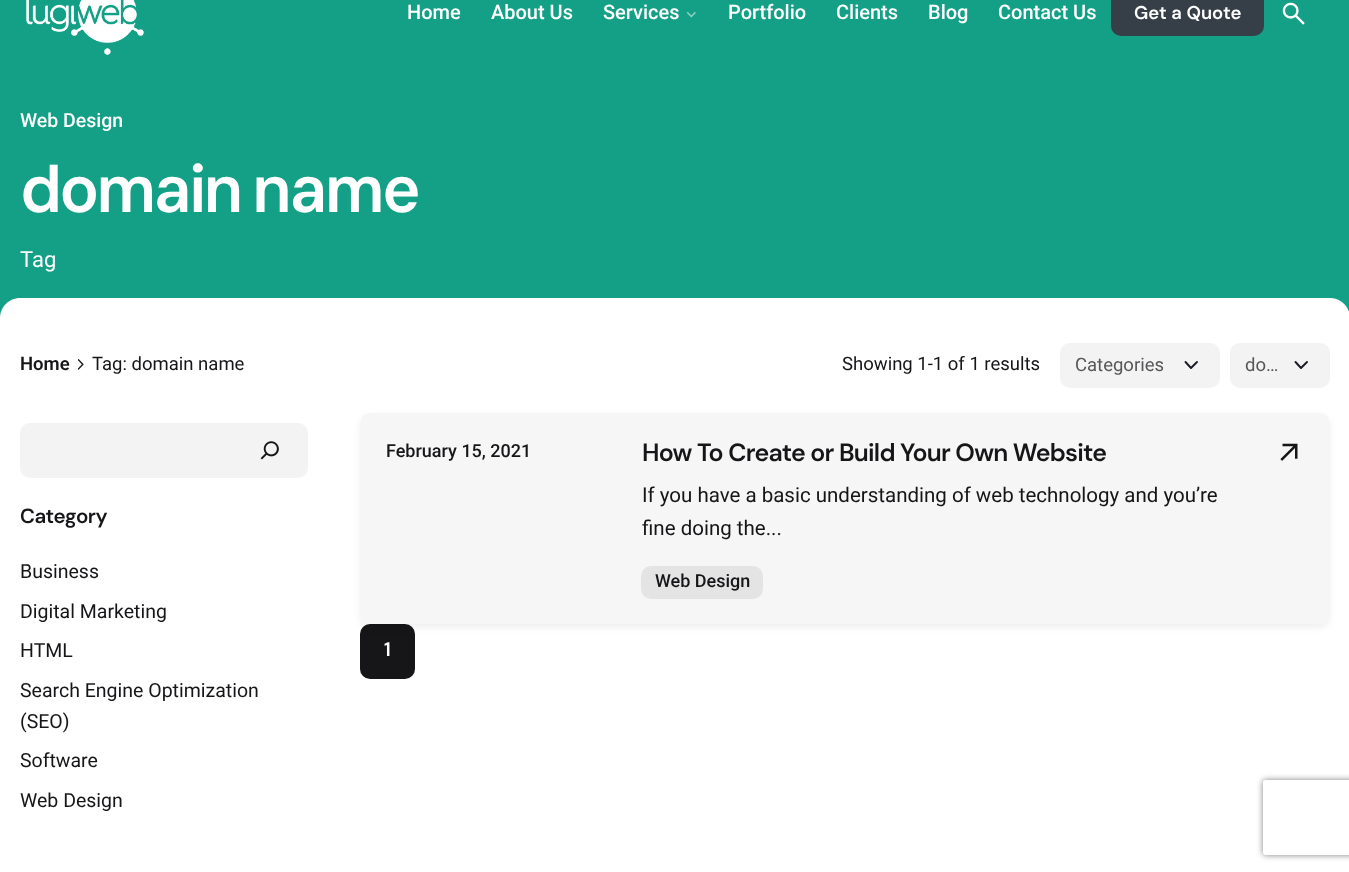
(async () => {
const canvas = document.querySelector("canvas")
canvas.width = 1349
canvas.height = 872
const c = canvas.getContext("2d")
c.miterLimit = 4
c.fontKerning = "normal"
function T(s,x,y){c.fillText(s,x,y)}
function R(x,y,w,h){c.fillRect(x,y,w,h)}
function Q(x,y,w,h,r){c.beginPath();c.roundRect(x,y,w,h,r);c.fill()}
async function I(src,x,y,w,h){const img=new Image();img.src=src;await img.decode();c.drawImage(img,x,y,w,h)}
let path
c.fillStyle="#fff"
R(0,0,1349,872)
c.fillStyle="#14a086"
R(0,0,1349,318)
await I("1.png",26,0,118,55)
c.font="500 20px Roboto"
c.fillStyle="#fff"
T("Home",407,19)
T("About Us",491,19)
T("Services",603,19)
await I("2.png",686,11,10,7)
T("Portfolio",728,19)
T("Clients",836,19)
T("Blog",928,19)
T("Contact Us",998,19)
c.fillStyle="#363f48"
Q(1111,-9,153,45,10)
c.font="600 18.5px 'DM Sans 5'"
c.fillStyle="#fff"
T("Get a Quote",1134,19)
await I("3.png",1282,2,23,23)
c.font="500 19.5px Roboto"
T("Web Design",20,127)
c.letterSpacing="-3px"
c.wordSpacing="-2px"
c.font="600 65.75px 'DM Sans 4'"
T("domain name",20,212)
c.letterSpacing="0px"
c.wordSpacing="0px"
c.font="22px Roboto"
T("Tag",20,267)
path = new Path2D("M20 298h1310c11 0 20 9 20 20h-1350c0-11 9-20 20-20z")
c.fill(path)
c.font="600 18.5px Roboto"
c.fillStyle="#161518"
T("Home",20,370)
await I("4.png",78,359,6,11)
c.font="18.5px Roboto"
T("Tag: domain name",92,370)
T("Showing 1-1 of 1 results",842,370)
c.fillStyle="#f3f3f3"
Q(1060,343,160,45,10)
path = new Path2D("M1185.5 362l5.5 6l6-6")
c.strokeStyle="#1b1b28"
c.lineWidth=1.9
c.lineCap="round"
c.lineJoin="round"
c.stroke(path)
c.fillStyle="#575658"
T("Categories",1075,371)
c.fillStyle="#f3f3f3"
Q(1230,343,100,45,10)
path = new Path2D("M1295.5 362l5.5 6l6-6")
c.stroke(path)
c.fillStyle="#575658"
T("do…",1245,371)
c.fillStyle="#f3f3f3"
Q(20,423,288,55,10)
await I("5.png",260,441,19,19)
c.letterSpacing="-0.5px"
c.font="600 20.5px 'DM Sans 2'"
c.fillStyle="#161518"
T("Category",20,523)
c.letterSpacing="0px"
c.font="19.5px Roboto"
T("Business",20,578)
T("Digital Marketing",20,618)
T("HTML",20,657)
T("Search Engine Optimization",20,697)
T("(SEO)",20,728)
T("Software",20,767)
T("Web Design",20,807)
Q(360,624,55,55,10)
c.save()
path = new Path2D("M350 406h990v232h-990zm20 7h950c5.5 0 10 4.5 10 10v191c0 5.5-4.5 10-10 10h-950c-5.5 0-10-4.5-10-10v-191c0-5.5 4.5-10 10-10z")
c.clip(path,"evenodd")
c.fillStyle="#0000000f"
c.filter="blur(3px)"
c.beginPath()
c.roundRect(360,416,970,212,10)
c.fill()
c.filter="none"
c.restore()
c.fillStyle="#88888914"
Q(360,413,970,211,10)
c.font="500 18px Roboto"
c.fillStyle="#161518"
T("February 15, 2021",386,457)
c.letterSpacing="-0.75px"
c.font="600 24.9px 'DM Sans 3'"
T("How To Create or Build Your Own Website",642,461)
c.letterSpacing="0px"
c.font="20.5px Roboto"
T("If you have a basic understanding of web technology and you’re",642,502)
T("fine doing the...",642,535)
c.fillStyle="#e4e4e4"
Q(641,566,122,33,10)
c.font="500 18px Roboto"
c.fillStyle="#161518"
T("Web Design",655,587)
await I("6.png",1280,443,18,18)
c.font="600 19.5px DM Sans"
c.fillStyle="#fff"
T("1",384,656)
c.save()
path = new Path2D("M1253 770h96v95h-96zm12.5 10h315c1.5 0 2.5 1 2.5 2.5v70c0 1.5-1 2.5-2.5 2.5h-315c-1.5 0-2.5-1-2.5-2.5v-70c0-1.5 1-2.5 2.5-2.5z")
c.clip(path,"evenodd")
c.fillStyle="#808080"
c.filter="blur(3px)"
c.beginPath()
c.roundRect(1263,780,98,75,2.5)
c.fill()
c.filter="none"
c.restore()
})()
